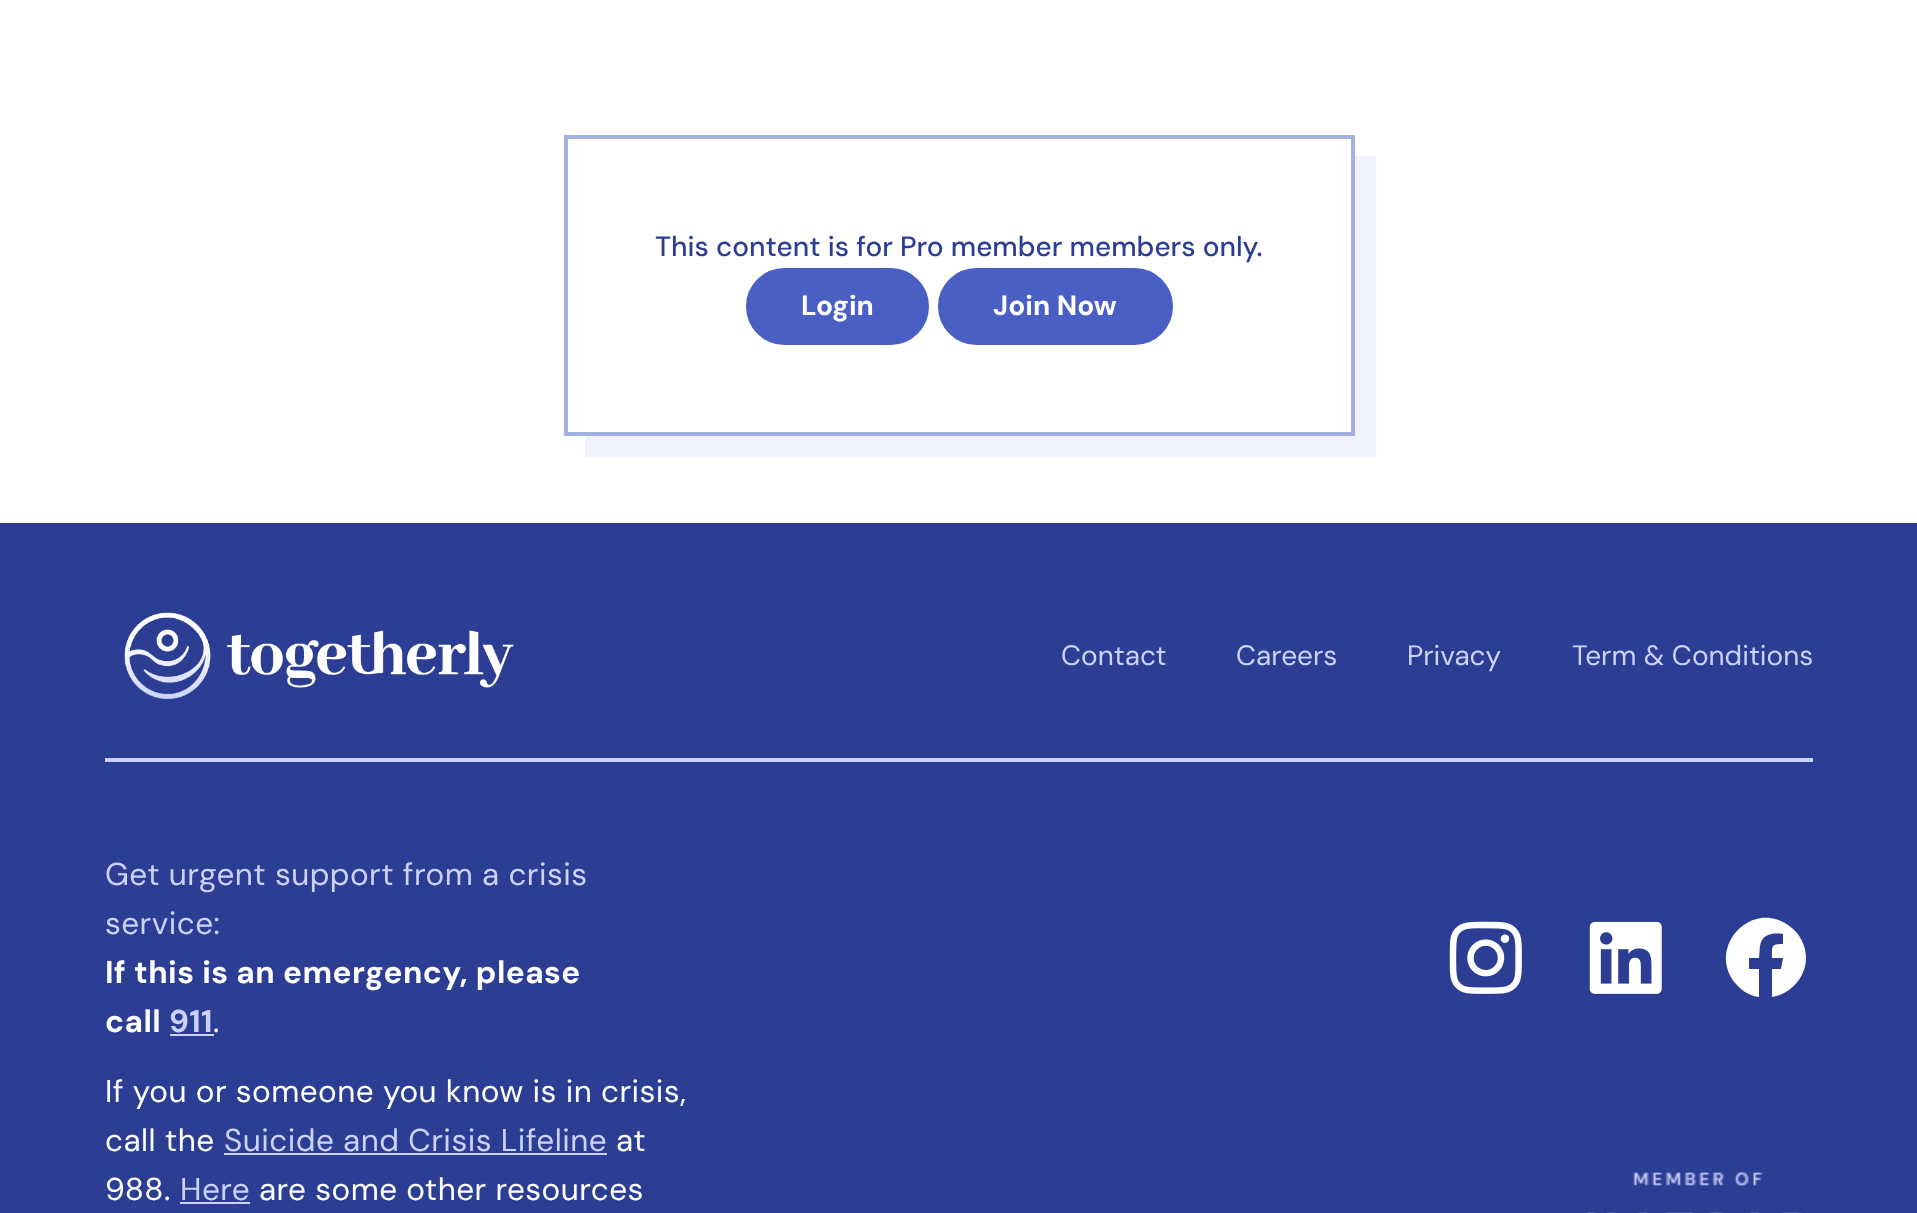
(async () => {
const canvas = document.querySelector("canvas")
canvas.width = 1917
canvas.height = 1213
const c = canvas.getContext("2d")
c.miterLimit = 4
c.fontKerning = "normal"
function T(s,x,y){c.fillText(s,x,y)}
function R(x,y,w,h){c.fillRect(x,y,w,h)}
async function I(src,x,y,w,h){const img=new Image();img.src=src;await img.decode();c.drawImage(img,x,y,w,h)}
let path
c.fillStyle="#fff"
R(0,0,1917,1213)
c.fillStyle="#f0f2ff"
path = new Path2D("M585 436v21h791v-301h-22v280z")
c.fill(path)
c.strokeStyle="#a4b0df"
c.lineWidth=4
c.strokeRect(566,137,787,297)
c.font="500 28px DM Sans"
c.fillStyle="#2c3e93"
T("This content is for Pro member members only.",655,256)
c.fillStyle="#495fc3"
c.beginPath()
c.roundRect(748,270,179,73,36.5)
c.fill()
c.strokeStyle="#495fc3"
c.stroke()
c.font="bold 28px DM Sans"
c.fillStyle="#fff"
T("Login",801,315)
c.fillStyle="#495fc3"
c.beginPath()
c.roundRect(940,270,231,73,36.5)
c.fill()
c.stroke()
c.fillStyle="#fff"
T("Join Now",993,315)
c.fillStyle="#2c3e93"
R(0,523,1917,690)
await I("1.png",124,612,390,88)
c.font="28px DM Sans"
c.fillStyle="#cdd2fd"
T("Contact",1061,665)
T("Careers",1236,665)
T("Privacy",1407,665)
T("Term & Conditions",1572,665)
R(105,758,1708,4)
c.letterSpacing="0.45px"
c.font="31.5px DM Sans"
T("Get urgent support from a crisis",105,885)
T("service:",105,934)
c.font="bold 31.5px DM Sans"
c.fillStyle="#fff"
T("If this is an emergency, please",105,983)
T("call",105,1032)
c.fillStyle="#cdd2fd"
T("911",169,1032)
R(170,1034,44,2)
c.font="31.5px DM Sans"
c.fillStyle="#fff"
T(".",213,1032)
await I("2.png",1449,921,73,73)
await I("3.png",1589,921,73,73)
path = new Path2D("M1806 958c0 19-15 36-34 39v-28h9l2-11h-11c0-12-1-14 11-14v-10c-9-1-21-1-23 12l-1 12h-10v11h10v28c-9-1-17-6-23-13c-30-35 14-85 52-59c11 7 18 20 18 33z")
c.fill(path)
T("If you or someone you know is in crisis,",105,1102)
T("call the",105,1151)
c.fillStyle="#cdd2fd"
T("Suicide and Crisis Lifeline",224,1151)
R(224,1153,383,2)
c.fillStyle="#fff"
T("at",616,1151)
T("988.",105,1200)
c.fillStyle="#cdd2fd"
T("Here",180,1200)
R(180,1202,70,2)
c.fillStyle="#fff"
T("are some other resources",259,1200)
await I("4.png",1587,1171,215,42)
})()
